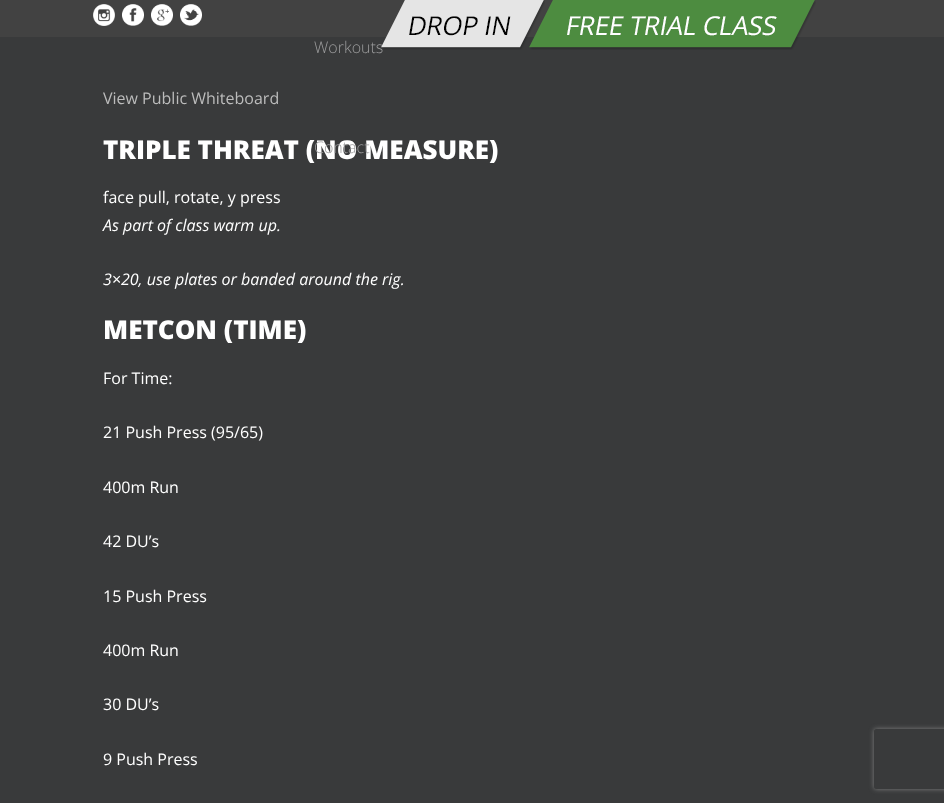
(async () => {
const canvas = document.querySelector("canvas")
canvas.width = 944
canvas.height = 803
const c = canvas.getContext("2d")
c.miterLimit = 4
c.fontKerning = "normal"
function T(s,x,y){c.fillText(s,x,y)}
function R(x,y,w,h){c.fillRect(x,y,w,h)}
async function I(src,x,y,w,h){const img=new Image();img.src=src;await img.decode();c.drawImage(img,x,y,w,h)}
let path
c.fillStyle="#393a3b"
R(0,0,944,803)
c.fillStyle="#424242"
R(0,0,944,37)
await I("1.png",93,4,22,22)
await I("2.png",122,4,22,22)
await I("3.png",151,4,22,22)
await I("4.png",180,4,22,22)
await I("6.png",529,0,287,50)
c.font="300 16px Open Sans"
c.fillStyle="#9c9c9d"
T("Workouts",314,53)
await I("5.png",381,0,164,50)
c.font="800 26px Open Sans"
c.fillStyle="#fff"
T("TRIPLE THREAT (NO MEASURE)",103,159)
c.font="300 16px Open Sans"
c.fillStyle="#9c9c9d"
T("Contact",314,153)
c.font="16px Open Sans"
c.fillStyle="#bcbcbc"
T("View Public Whiteboard",103,104)
c.fillStyle="#fff"
T("face pull, rotate, y press",103,203)
c.font="italic 16px Open Sans"
T("As part of class warm up.",103,231)
T("3×20, use plates or banded around the rig.",103,285)
c.font="800 26px Open Sans"
T("METCON (TIME)",103,339)
c.font="16px Open Sans"
T("For Time:",103,384)
T("21 Push Press (95/65)",103,438)
T("400m Run",103,493)
T("42 DU’s",103,547)
T("15 Push Press",103,602)
T("400m Run",103,656)
T("30 DU’s",103,710)
T("9 Push Press",103,765)
c.save()
path = new Path2D("M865 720h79v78h-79zm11 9h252c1 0 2 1 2 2v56c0 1-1 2-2 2h-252c-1 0-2-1-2-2v-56c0-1 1-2 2-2z")
c.clip(path,"evenodd")
c.fillStyle="#808080"
c.filter="blur(2.5px)"
c.beginPath()
c.roundRect(874,729,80,60,2)
c.fill()
c.filter="none"
c.restore()
})()
